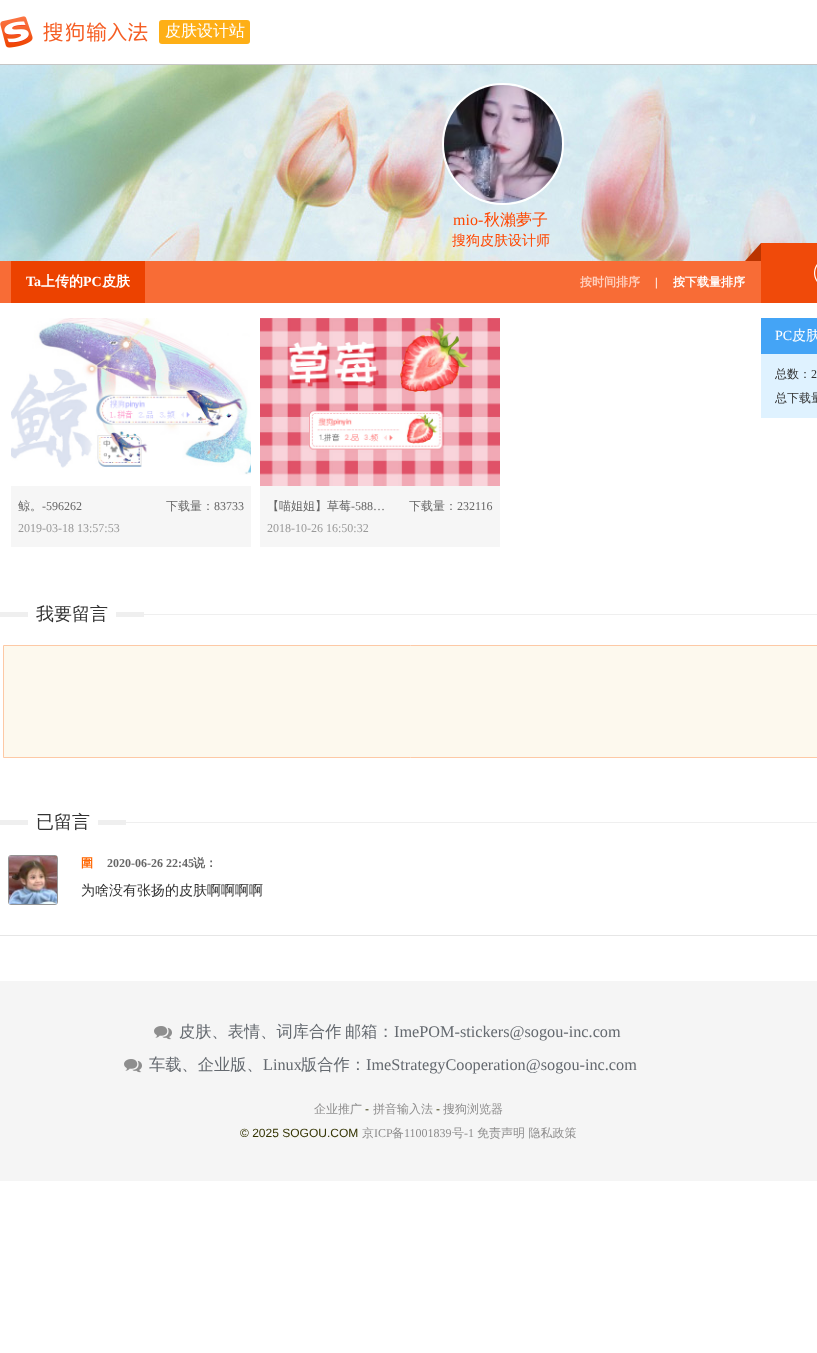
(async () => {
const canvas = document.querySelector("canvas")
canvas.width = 817
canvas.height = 1353
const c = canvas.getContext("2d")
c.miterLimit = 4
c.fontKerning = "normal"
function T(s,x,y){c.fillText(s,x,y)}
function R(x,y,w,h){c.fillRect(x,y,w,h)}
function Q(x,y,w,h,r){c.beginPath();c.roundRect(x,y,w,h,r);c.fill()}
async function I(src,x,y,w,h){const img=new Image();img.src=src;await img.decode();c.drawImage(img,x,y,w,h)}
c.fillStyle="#fff"
R(0,0,817,1353)
c.fillStyle="#c6c6c6"
R(0,64,817,1)
await I("1.png",0,16,148,32)
c.fillStyle="#feaf16"
Q(159,20,91,24,3)
c.font="500 16px WenQuanYi Zen Hei"
c.fillStyle="#fff"
T("皮肤设计站",165,36)
await I("2.png",0,65,817,196)
c.beginPath()
c.arc(503,144,60,0,7)
c.strokeStyle="#fff"
c.lineWidth=2
c.stroke()
await I("3.png",444,85,118,118)
c.font="16px Liberation Serif"
c.fillStyle="#ff4700"
T("mio-",453,225)
c.font="500 16px WenQuanYi Zen Hei"
T("秋瀨夢子",484,225)
c.font="500 14px WenQuanYi Zen Hei"
T("搜狗皮肤设计师",452,245)
c.fillStyle="#f86c36"
R(0,261,761,42)
c.fillStyle="#ec4200"
R(11,261,134,42)
c.font="bold 14px Liberation Serif"
c.fillStyle="#fff"
T("Ta",26,286)
c.font="bold 14px WenQuanYi Zen Hei"
T("上传的",41,286)
c.font="bold 14px Liberation Serif"
T("PC",83,286)
c.font="bold 14px WenQuanYi Zen Hei"
T("皮肤",102,286)
c.font="bold 12px WenQuanYi Zen Hei"
c.fillStyle="#ffd0be"
T("按时间排序",580,286)
c.font="bold 12px Liberation Serif"
c.fillStyle="#fff"
T("|",655,286)
c.font="bold 12px WenQuanYi Zen Hei"
T("按下载量排序",673,286)
await I("4.png",745,243,16,18)
c.fillStyle="#f04a0a"
R(761,243,56,60)
await I("5.png",814,264,3,18)
c.fillStyle="#dff2ff"
R(761,354,56,64)
c.fillStyle="#44a4f6"
R(761,318,56,36)
c.font="14px Liberation Serif"
c.fillStyle="#fff"
T("PC",775,340)
c.font="500 14px WenQuanYi Zen Hei"
T("皮肤",792,340)
c.font="500 12px WenQuanYi Zen Hei"
c.fillStyle="#333"
T("总数：",775,378)
c.font="12px Liberation Serif"
T("2",811,378)
c.font="500 12px WenQuanYi Zen Hei"
T("总下载量",775,402)
await I("6.png",11,318,240,157)
c.fillStyle="#f6f6f6"
R(11,486,240,61)
c.fillStyle="#666"
T("鲸。",18,510)
c.font="12px Liberation Serif"
T("-596262",42,510)
c.font="500 12px WenQuanYi Zen Hei"
T("下载量：",166,510)
c.font="12px Liberation Serif"
T("83733",214,510)
c.fillStyle="#999"
T("2019-03-18 13:57:53",18,532)
await I("7.png",260,318,240,168)
c.fillStyle="#f6f6f6"
R(260,486,240,61)
c.font="500 12px WenQuanYi Zen Hei"
c.fillStyle="#666"
T("【喵姐姐】草莓",267,510)
c.font="12px Liberation Serif"
T("-588…",351,510)
c.font="500 12px WenQuanYi Zen Hei"
T("下载量：",409,510)
c.font="12px Liberation Serif"
T("232116",457,510)
c.fillStyle="#999"
T("2018-10-26 16:50:32",267,532)
c.fillStyle="#efefef"
R(0,612,28,5)
c.font="500 18px WenQuanYi Zen Hei"
c.fillStyle="#333"
T("我要留言",36,620)
c.fillStyle="#efefef"
R(116,612,28,5)
R(144,614,673,1)
c.fillStyle="#fdf9ee"
c.beginPath()
c.rect(3.5,645.5,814,112)
c.fill()
c.strokeStyle="#fdc9a5"
c.lineWidth=1
c.stroke()
c.fillStyle="#efefef"
R(0,820,28,5)
c.fillStyle="#333"
T("已留言",36,828)
c.fillStyle="#efefef"
R(98,820,28,5)
R(126,822,691,1)
c.fillStyle="#e6e6e6"
R(0,935,817,1)
c.beginPath()
c.roundRect(8.5,855.5,49,49,2.5)
c.strokeStyle="#949494"
c.stroke()
await I("8.png",9,856,48,48)
c.font="bold 12px WenQuanYi Zen Hei"
c.fillStyle="#f60"
T("圍",81,867)
c.font="bold 12px Liberation Serif"
c.fillStyle="#666"
T("2020-06-26 22:45",107,867)
c.font="bold 12px WenQuanYi Zen Hei"
T("说：",193,867)
c.font="500 14px WenQuanYi Zen Hei"
c.fillStyle="#333"
T("为啥没有张扬的皮肤啊啊啊啊",81,895)
c.fillStyle="#f5f5f5"
R(0,981,817,200)
await I("9.png",154,1026,18,14)
c.font="500 16.25px WenQuanYi Zen Hei"
c.fillStyle="#64696f"
T("皮肤、表情、词库合作",179,1037)
T("邮箱：",345,1037)
c.font="16.25px Liberation Serif"
T("ImePOM-stickers@sogou-inc.com",394,1037)
await I("9.png",124,1059,18,14)
c.font="500 16.25px WenQuanYi Zen Hei"
T("车载、企业版、",149,1070)
c.font="16.25px Liberation Serif"
T("Linux",263,1070)
c.font="500 16.25px WenQuanYi Zen Hei"
T("版合作：",301,1070)
c.font="16.25px Liberation Serif"
T("ImeStrategyCooperation@sogou-inc.com",366,1070)
c.font="500 12px WenQuanYi Zen Hei"
c.fillStyle="#8e8d8d"
T("企业推广",314,1113)
c.font="12px Liberation Sans"
c.fillStyle="#330"
T("-",365,1113)
c.font="500 12px WenQuanYi Zen Hei"
c.fillStyle="#8e8d8d"
T("拼音输入法",373,1113)
c.font="12px Liberation Sans"
c.fillStyle="#330"
T("-",436,1113)
c.font="500 12px WenQuanYi Zen Hei"
c.fillStyle="#8e8d8d"
T("搜狗浏览器",443,1113)
c.font="12px Liberation Sans"
c.fillStyle="#330"
T("© 2025 SOGOU.COM",240,1137)
c.font="500 12px WenQuanYi Zen Hei"
c.fillStyle="#8e8d8d"
T("京",362,1137)
c.font="12px Liberation Serif"
T("ICP",374,1137)
c.font="500 12px WenQuanYi Zen Hei"
T("备",392,1137)
c.font="12px Liberation Serif"
T("11001839",404,1137)
c.font="500 12px WenQuanYi Zen Hei"
T("号",452,1137)
c.font="12px Liberation Serif"
T("-1",464,1137)
c.font="500 12px WenQuanYi Zen Hei"
T("免责声明 隐私政策",477,1137)
})()
